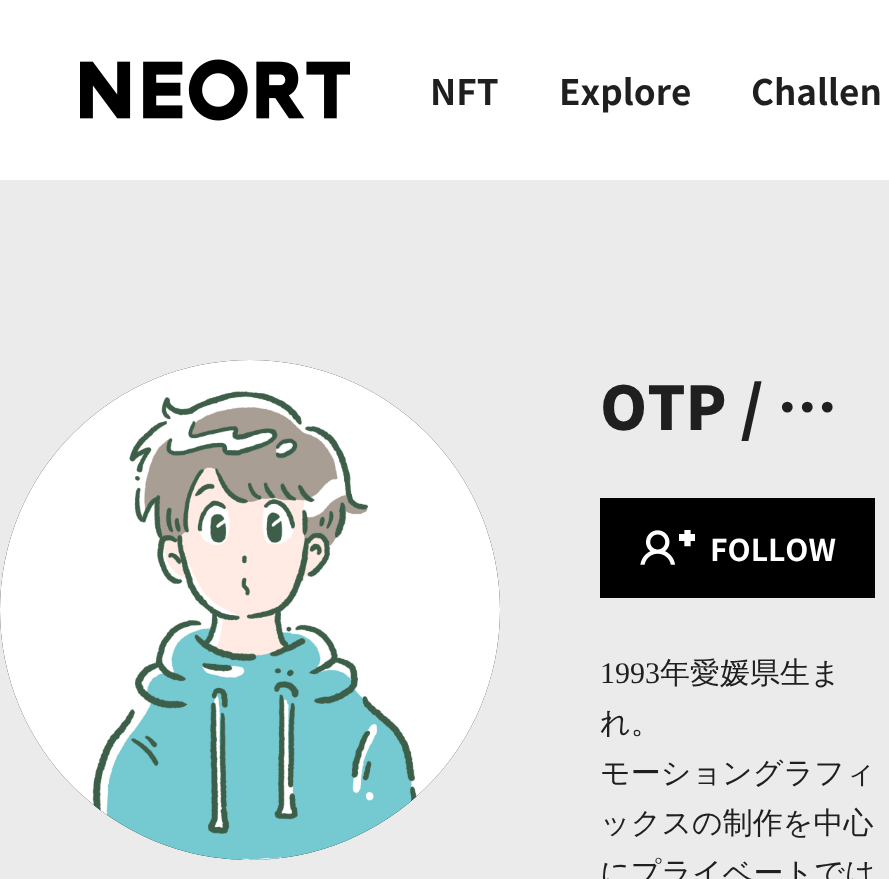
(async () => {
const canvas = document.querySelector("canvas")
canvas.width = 889
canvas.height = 879
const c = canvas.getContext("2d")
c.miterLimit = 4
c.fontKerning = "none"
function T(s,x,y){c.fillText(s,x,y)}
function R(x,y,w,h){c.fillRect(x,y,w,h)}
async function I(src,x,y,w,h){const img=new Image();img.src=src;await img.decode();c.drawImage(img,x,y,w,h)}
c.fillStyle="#fff"
R(0,0,889,879)
await I("1.png",80,59,270,62)
c.font="bold 35px Noto Sans JP"
c.fillStyle="#1f1f1f"
T("NFT",430,105)
T("Explore",559,105)
T("Challen",751,105)
c.fillStyle="#ebebeb"
R(0,180,889,699)
c.fillStyle="#000"
c.beginPath()
c.arc(250,610,250,0,7)
c.fill()
await I("2.png",0,360,500,500)
c.font="900 60px Noto Sans JP"
c.fillStyle="#1f1f1f"
T("OTP / …",600,430)
c.fillStyle="#000"
R(600,498,275,100)
await I("3.png",640,530,55,35)
c.font="bold 30px Noto Sans JP"
c.fillStyle="#fff"
T("FOLLOW",710,561)
c.font="30px Liberation Serif"
c.fillStyle="#1f1f1f"
T("1993",600,683)
c.font="500 30px WenQuanYi Zen Hei"
T("年愛媛県生ま",660,683)
T("れ。",600,733)
T("モーショングラフィ",600,783)
T("ックスの制作を中心",600,833)
T("にプライベートでは",600,883)
})()
